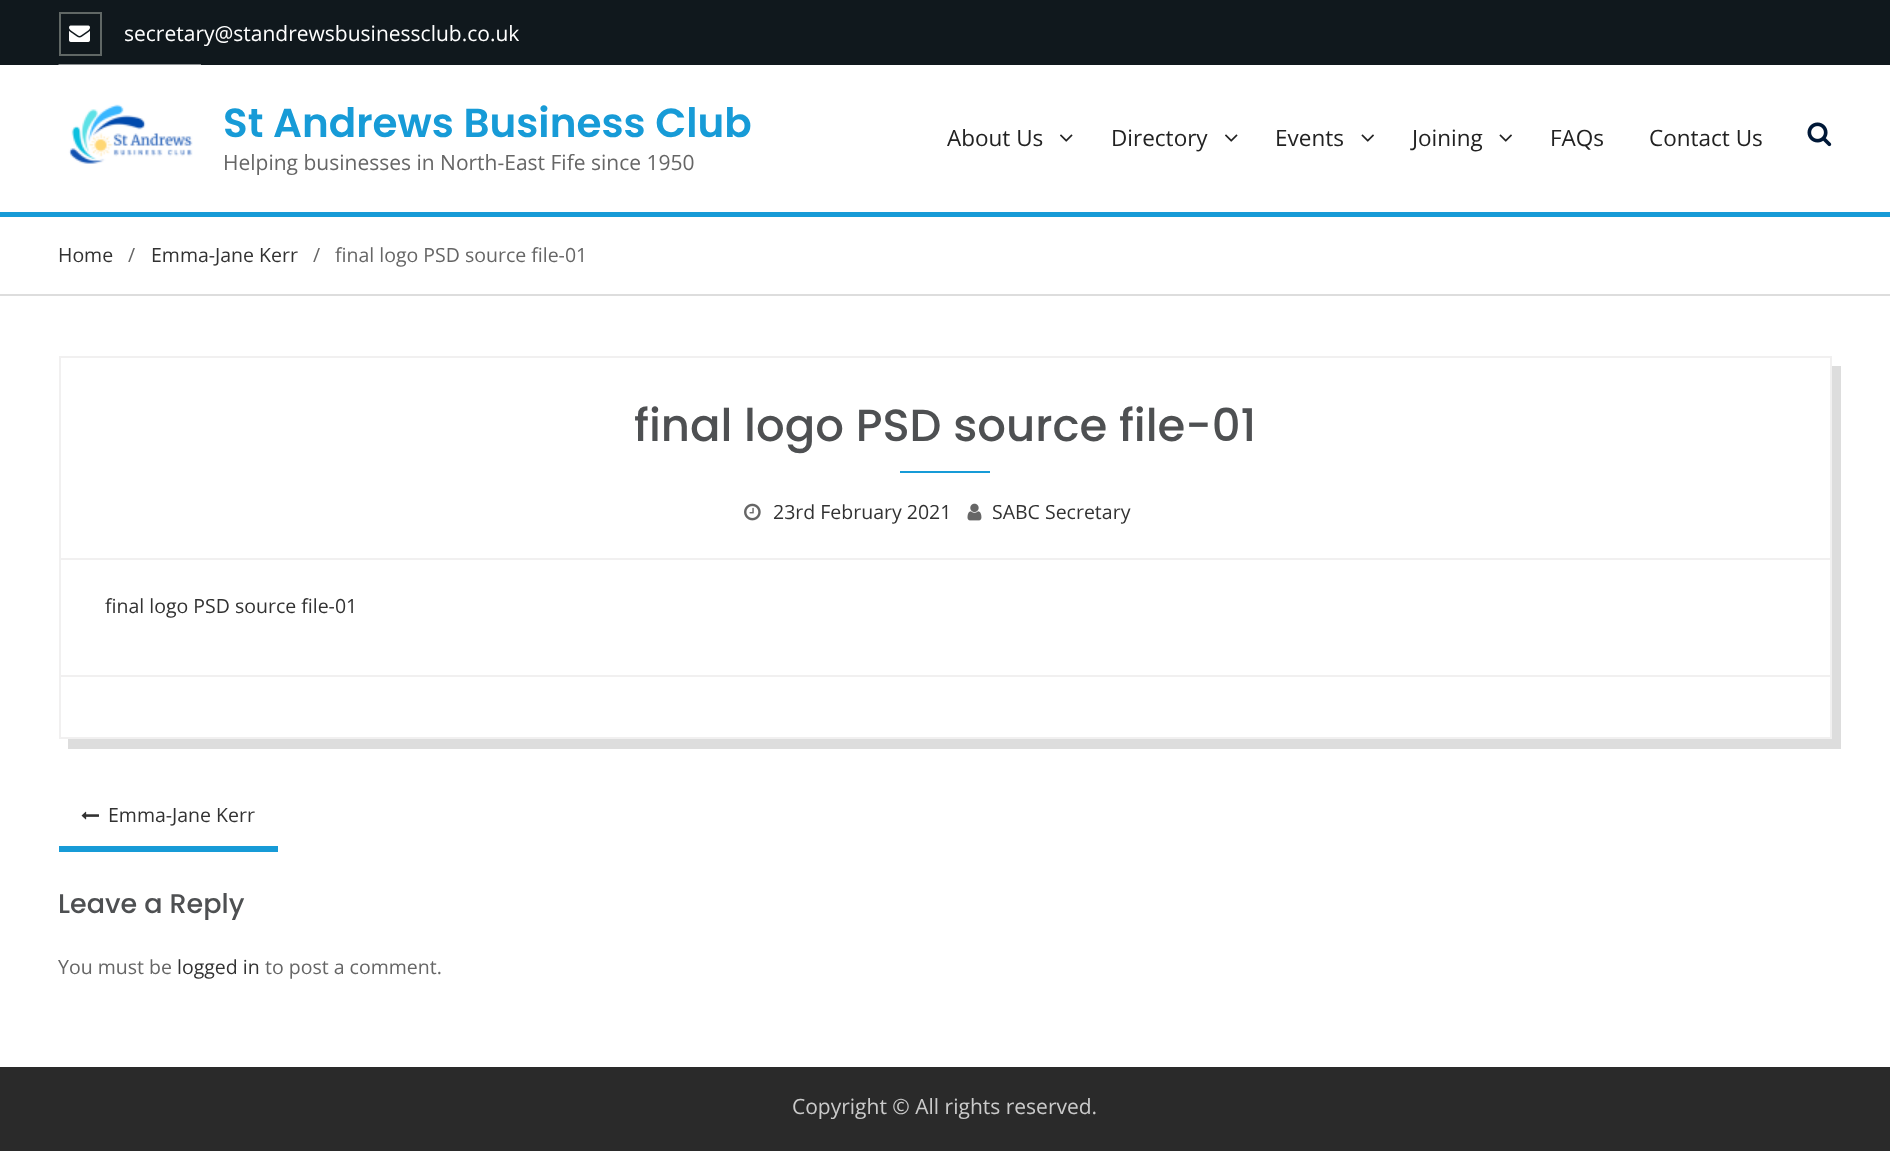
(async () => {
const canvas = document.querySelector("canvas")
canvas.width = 1890
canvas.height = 1151
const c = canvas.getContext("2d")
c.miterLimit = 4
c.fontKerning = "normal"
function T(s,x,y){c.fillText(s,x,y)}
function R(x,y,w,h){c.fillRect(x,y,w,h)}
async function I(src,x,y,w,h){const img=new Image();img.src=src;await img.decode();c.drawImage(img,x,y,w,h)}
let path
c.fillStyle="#fff"
R(0,0,1890,1151)
c.fillStyle="#10181d"
R(0,0,1890,65)
c.strokeStyle="#606765"
c.lineWidth=2
c.strokeRect(60,13,41,42)
await I("1.png",69,25,21,17)
c.font="21px Open Sans"
c.fillStyle="#fff"
T("secretary@standrewsbusinessclub.co.uk",124,41)
await I("2.png",58,64,143,100)
c.font="600 40.5px Poppins"
c.fillStyle="#179bd7"
T("St Andrews Business Club",223,137)
c.font="21px Open Sans"
c.fillStyle="#666"
T("Helping businesses in North-East Fife since 1950",223,170)
c.font="22.5px Open Sans"
c.fillStyle="#222"
T("About Us",947,146)
await I("3.png",1060,134,13,8)
T("Directory",1111,146)
await I("3.png",1225,134,13,8)
T("Events",1275,146)
await I("4.png",1361,134,13,8)
T("Joining",1412,146)
await I("4.png",1499,134,13,8)
T("FAQs",1550,146)
T("Contact Us",1649,146)
await I("5.png",1807,122,25,25)
c.fillStyle="#179bd7"
R(0,212,1890,5)
c.fillStyle="#ddd"
R(0,294,1890,2)
c.font="19.5px Open Sans"
c.fillStyle="#323232"
T("Home",58,262)
c.fillStyle="#666"
T("/",128,262)
c.fillStyle="#323232"
T("Emma-Jane Kerr",151,262)
c.fillStyle="#666"
T("/",313,262)
T("final logo PSD source file-01",335,262)
c.fillStyle="#ddd"
path = new Path2D("M68 738v11h1773v-383h-9v372z")
c.fill(path)
c.fillStyle="#f1f0f0"
R(1830,356,2,382)
R(59,737,1773,2)
R(59,356,2,382)
R(60,356,1770,2)
c.font="500 45px Poppins"
c.fillStyle="#4e5052"
T("final logo PSD source file-01",634,441)
c.fillStyle="#179bd7"
R(900,471,90,2)
await I("6.png",744,503,17,18)
c.font="19.5px Open Sans"
c.fillStyle="#323232"
T("23rd February 2021",773,519)
await I("7.png",967,503,15,18)
T("SABC Secretary",992,519)
c.fillStyle="#f1f0f0"
R(60,558,1770,2)
c.fillStyle="#323232"
T("final logo PSD source file-01",105,613)
c.fillStyle="#f1f0f0"
R(60,675,1770,2)
c.fillStyle="#179bd7"
R(59,846,219,6)
await I("8.png",81,811,18,9)
c.fillStyle="#323232"
T("Emma-Jane Kerr",108,822)
c.font="500 27px Poppins"
c.fillStyle="#4e5052"
T("Leave a Reply",58,913)
c.font="19.5px Open Sans"
c.fillStyle="#666"
T("You must be",58,974)
c.fillStyle="#323232"
T("logged in",177,974)
c.fillStyle="#666"
T("to post a comment.",265,974)
c.fillStyle="#2a2a2a"
R(0,1067,1890,84)
c.font="21px Open Sans"
c.fillStyle="#cacaca"
T("Copyright © All rights reserved.",792,1114)
})()
